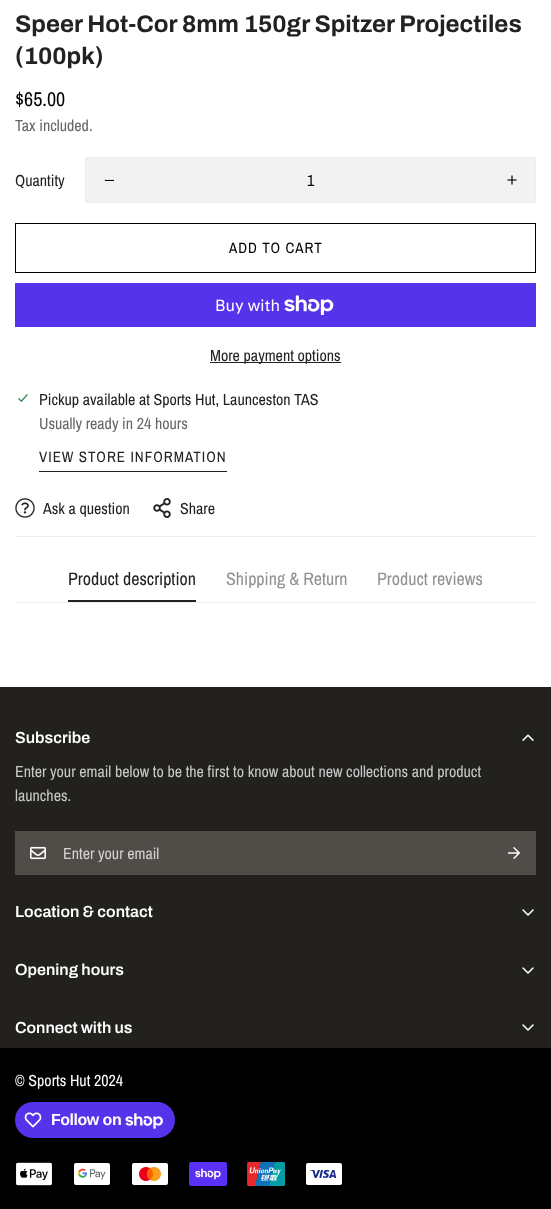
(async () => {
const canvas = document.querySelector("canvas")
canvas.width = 551
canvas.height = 1209
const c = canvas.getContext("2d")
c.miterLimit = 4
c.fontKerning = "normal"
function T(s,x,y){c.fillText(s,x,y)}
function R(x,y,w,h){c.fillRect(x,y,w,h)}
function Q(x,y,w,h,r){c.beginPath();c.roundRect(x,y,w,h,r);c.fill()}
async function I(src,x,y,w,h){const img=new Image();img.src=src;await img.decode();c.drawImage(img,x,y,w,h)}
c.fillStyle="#fff"
R(0,0,551,1209)
c.font="bold 24px Archivo"
c.fillStyle="#222"
T("Speer Hot-Cor 8mm 150gr Spitzer Projectiles",15,32)
T("(100pk)",15,64)
c.font="20px Archivo Narrow"
c.fillStyle="#000"
T("$65.00",15,106)
c.font="16px Archivo Narrow"
c.fillStyle="#666"
T("Tax included.",15,131)
c.fillStyle="#222"
T("Quantity",15,186)
c.fillStyle="#f2f2f2"
c.beginPath()
c.rect(85.5,157.5,450,45)
c.fill()
c.strokeStyle="#eee"
c.stroke()
await I("1.png",104,179,10,2)
c.fillStyle="#000"
T("1",307,186)
await I("2.png",507,175,10,10)
c.strokeStyle="#000"
c.strokeRect(15.5,223.5,520,49)
c.letterSpacing="1px"
c.font="15px Archivo Narrow"
T("ADD TO CART",229,253)
c.fillStyle="#5433eb"
R(15,283,521,44)
c.letterSpacing="0px"
c.font="16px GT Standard"
c.fillStyle="#fff"
T("Buy with",215,311)
await I("3.png",284,295,50,20)
c.fillStyle="#222"
R(210,362,131,1)
c.font="16px Archivo Narrow"
T("More payment options",210,361)
await I("4.png",17,393,12,10)
T("Pickup available at Sports Hut, Launceston TAS",39,405)
c.fillStyle="#666"
T("Usually ready in 24 hours",39,429)
c.letterSpacing="1px"
c.font="15px Archivo Narrow"
c.fillStyle="#222"
T("VIEW STORE INFORMATION",39,462)
R(39,471,188,1)
c.fillStyle="#eee"
R(15,536,521,1)
await I("5.png",15,498,20,20)
c.letterSpacing="0px"
c.font="16px Archivo Narrow"
c.fillStyle="#222"
T("Ask a question",43,514)
await I("6.png",153,498,18,20)
T("Share",180,514)
c.fillStyle="#eee"
R(15,602,521,1)
c.font="18px Archivo Narrow"
c.fillStyle="#222"
T("Product description",68,585)
R(68,600,128,2)
c.fillStyle="#919191"
T("Shipping & Return",226,585)
T("Product reviews",377,585)
c.fillStyle="#22211e"
R(0,687,551,361)
c.font="600 16px Archivo"
c.fillStyle="#fff"
T("Subscribe",15,743)
await I("7.png",522,734,12,7)
c.font="16px Archivo Narrow"
c.fillStyle="#c9c9c9"
T("Enter your email below to be the first to know about new collections and product",15,777)
T("launches.",15,801)
c.fillStyle="#504d48"
R(15,831,521,44)
await I("8.png",30,846,16,14)
c.fillStyle="#d3d3d1"
T("Enter your email",63,859)
await I("9.png",507,847,13,12)
c.font="600 16px Archivo"
c.fillStyle="#fff"
T("Location & contact",15,917)
await I("10.png",522,909,12,7)
T("Opening hours",15,975)
await I("10.png",522,967,12,7)
T("Connect with us",15,1033)
await I("10.png",522,1024,12,7)
c.fillStyle="#000"
R(0,1048,551,161)
c.font="16px Archivo Narrow"
c.fillStyle="#fff"
T("© Sports Hut 2024",15,1086)
c.fillStyle="#5433eb"
Q(15,1102,160,36,18)
await I("11.png",24,1112,18,16)
c.letterSpacing="-0.5px"
c.font="bold 16px Liberation Sans"
c.fillStyle="#fff"
T("Follow on",51,1125)
await I("12.png",125,1113,38,16)
await I("13.png",16,1162,36,24)
await I("14.png",74,1163,36,22)
await I("15.png",132,1163,36,22)
await I("16.png",189,1162,38,24)
await I("17.png",247,1162,38,24)
await I("18.png",306,1163,36,22)
})()
